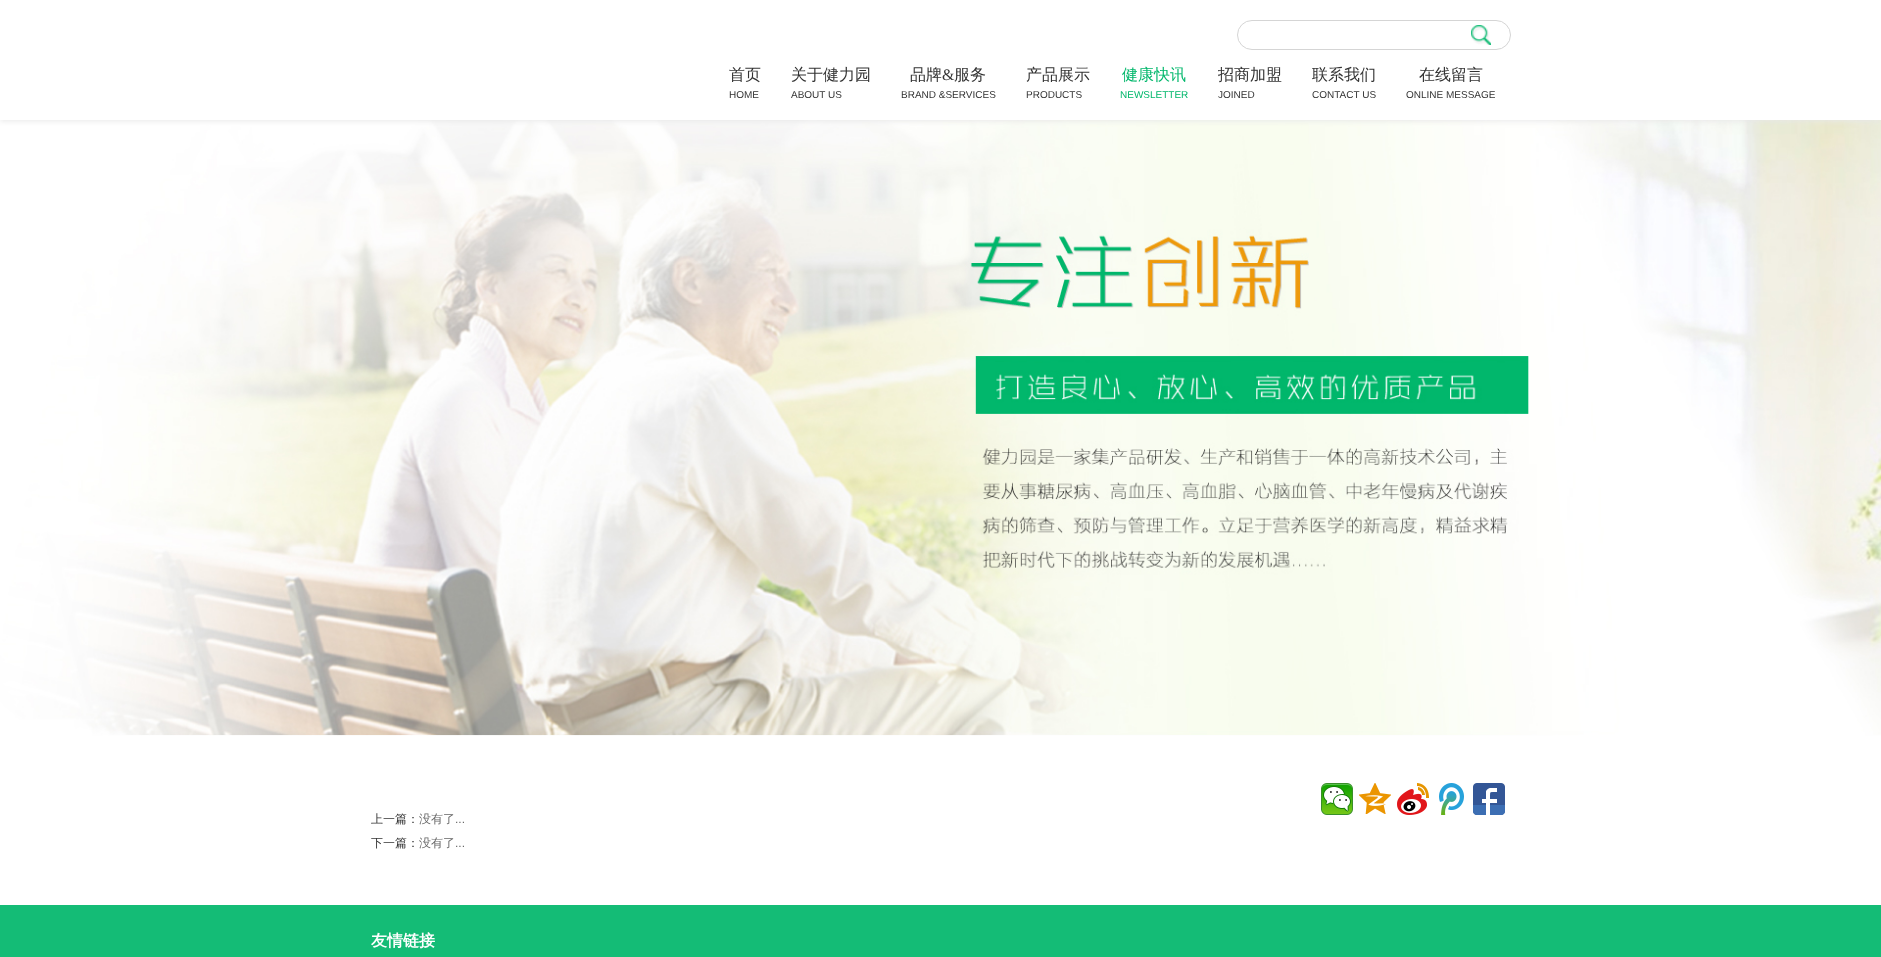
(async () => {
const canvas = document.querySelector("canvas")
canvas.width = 1881
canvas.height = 957
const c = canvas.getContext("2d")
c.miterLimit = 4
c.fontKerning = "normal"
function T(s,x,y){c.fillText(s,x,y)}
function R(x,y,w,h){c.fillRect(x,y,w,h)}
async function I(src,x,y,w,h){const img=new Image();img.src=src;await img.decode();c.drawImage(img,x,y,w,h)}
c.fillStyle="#fff"
R(0,0,1881,957)
c.beginPath()
c.roundRect(1237.5,20.5,273,29,14.5)
c.strokeStyle="#d5d5d5"
c.stroke()
await I("1.png",1471,25,20,20)
c.font="500 16px WenQuanYi Zen Hei"
c.fillStyle="#333"
T("首页",729,80)
c.font="10px Liberation Sans"
T("HOME",729,98)
c.font="500 16px WenQuanYi Zen Hei"
T("关于健力园",791,80)
c.font="10px Liberation Sans"
T("ABOUT US",791,98)
c.font="500 16px WenQuanYi Zen Hei"
T("品牌",910,80)
c.font="16px Liberation Serif"
T("&",942,80)
c.font="500 16px WenQuanYi Zen Hei"
T("服务",954,80)
c.font="10px Liberation Sans"
T("BRAND &SERVICES",901,98)
c.font="500 16px WenQuanYi Zen Hei"
T("产品展示",1026,80)
c.font="10px Liberation Sans"
T("PRODUCTS",1026,98)
c.font="500 16px WenQuanYi Zen Hei"
c.fillStyle="#00b76b"
T("健康快讯",1122,80)
c.font="10px Liberation Sans"
T("NEWSLETTER",1120,98)
c.font="500 16px WenQuanYi Zen Hei"
c.fillStyle="#333"
T("招商加盟",1218,80)
c.font="10px Liberation Sans"
T("JOINED",1218,98)
c.font="500 16px WenQuanYi Zen Hei"
T("联系我们",1312,80)
c.font="10px Liberation Sans"
T("CONTACT US",1312,98)
c.font="500 16px WenQuanYi Zen Hei"
T("在线留言",1419,80)
c.font="10px Liberation Sans"
T("ONLINE MESSAGE",1406,98)
await I("2.png",0,120,1881,616)
await I("3.png",1321,783,32,32)
await I("4.png",1359,783,32,31)
await I("5.png",1397,783,32,32)
await I("6.png",1439,783,25,32)
await I("7.png",1473,783,32,32)
c.font="500 12px WenQuanYi Zen Hei"
T("上一篇：",371,823)
c.fillStyle="#666"
T("没有了",419,823)
c.font="12px Liberation Sans"
T("...",455,823)
c.font="500 12px WenQuanYi Zen Hei"
c.fillStyle="#333"
T("下一篇：",371,847)
c.fillStyle="#666"
T("没有了",419,847)
c.font="12px Liberation Sans"
T("...",455,847)
c.fillStyle="#14bc76"
R(0,905,1881,52)
c.font="bold 16px WenQuanYi Zen Hei"
c.fillStyle="#fff"
T("友情链接",371,946)
})()
